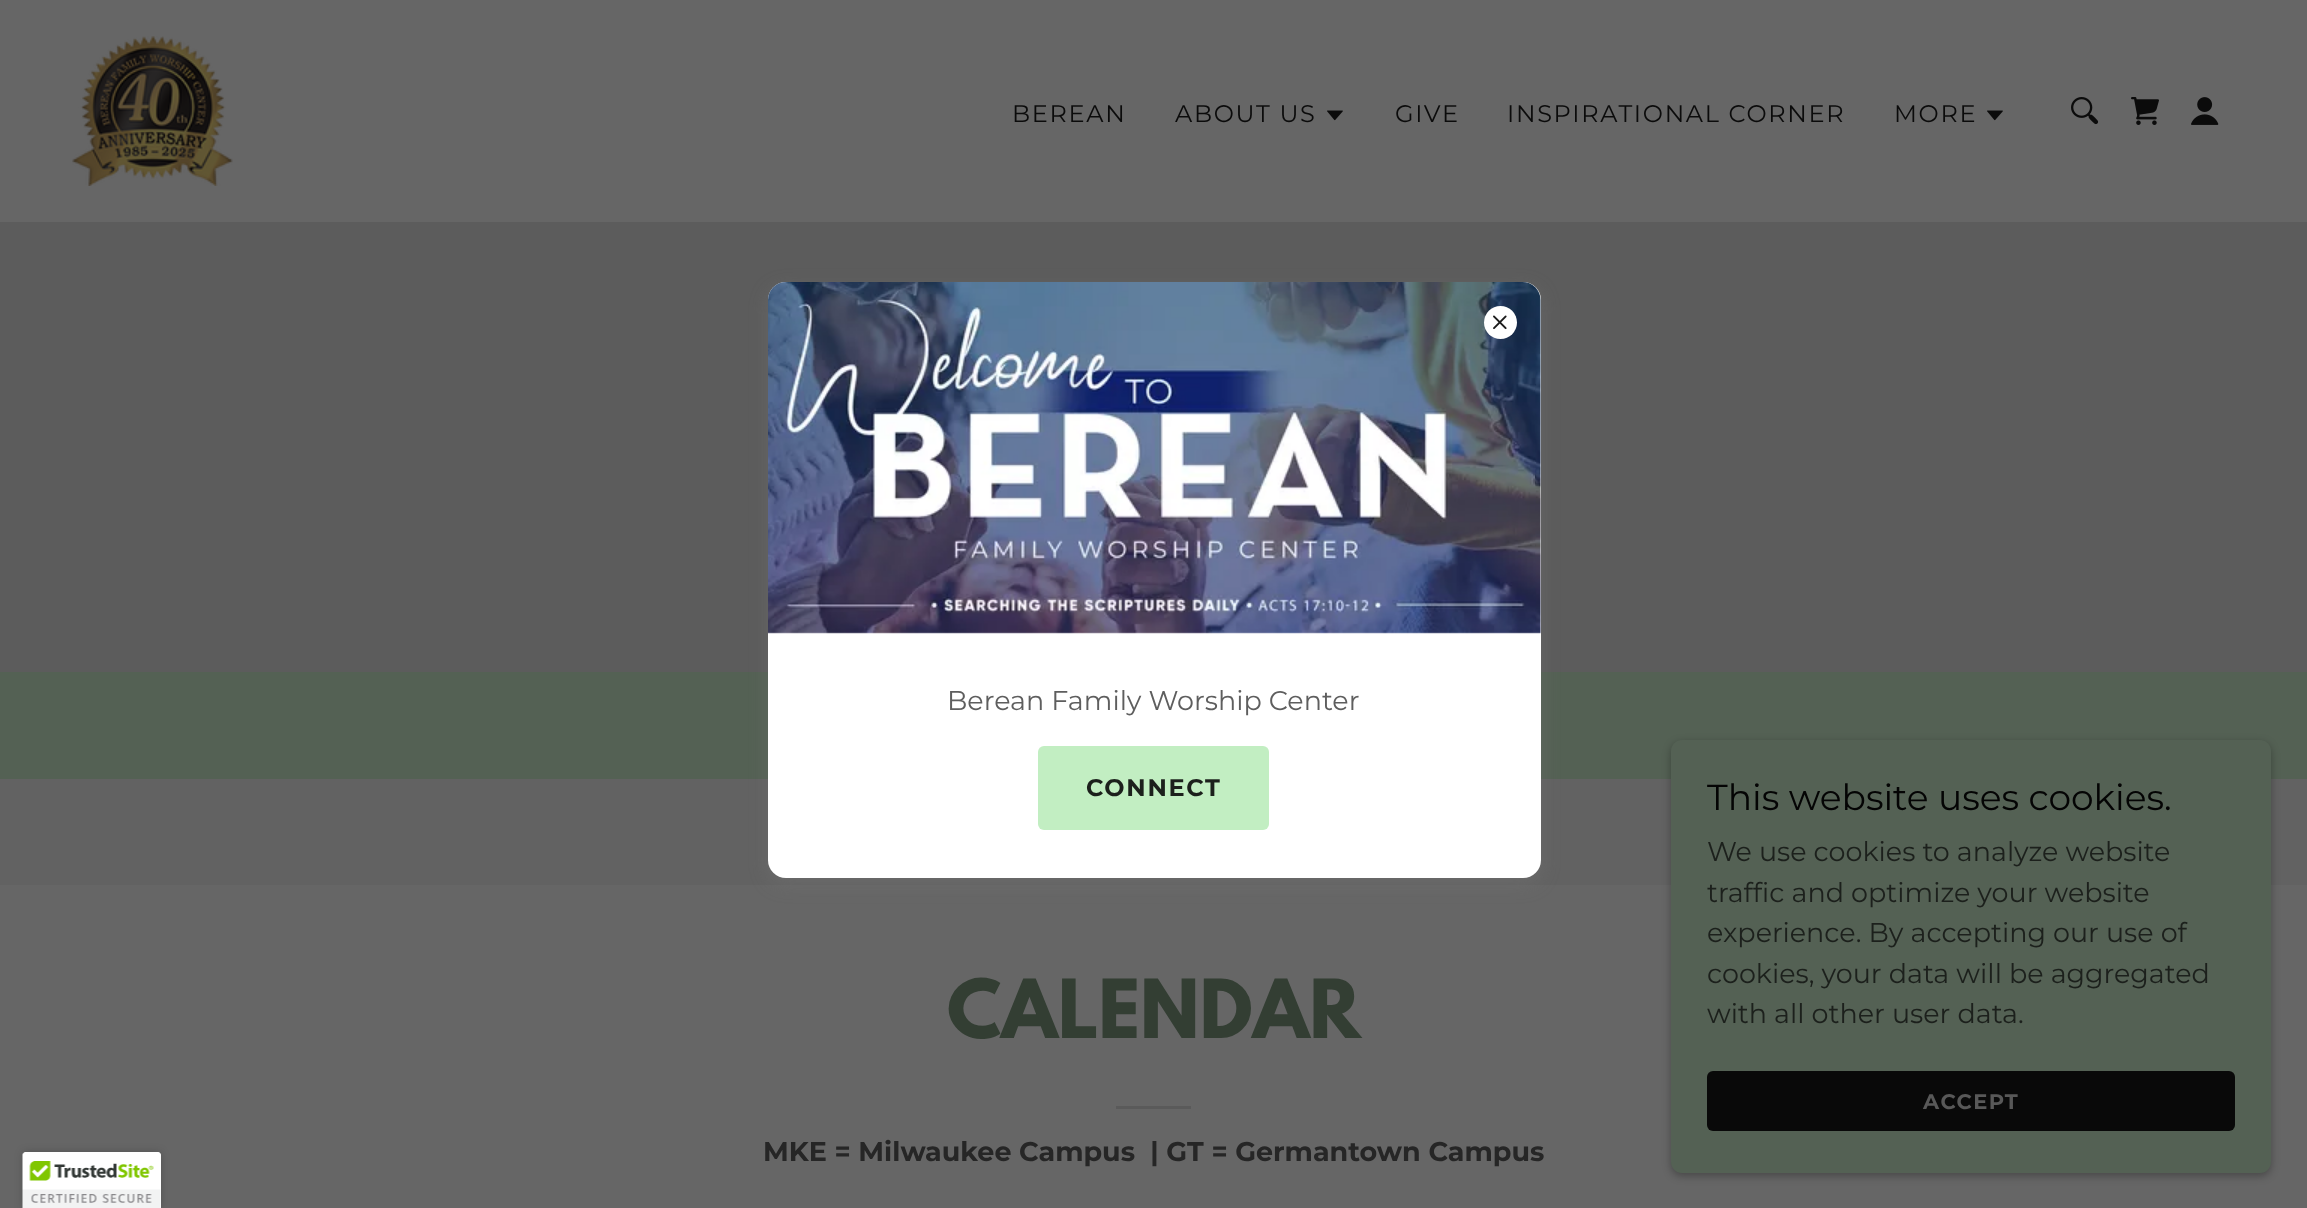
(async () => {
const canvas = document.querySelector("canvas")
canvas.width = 2307
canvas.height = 1208
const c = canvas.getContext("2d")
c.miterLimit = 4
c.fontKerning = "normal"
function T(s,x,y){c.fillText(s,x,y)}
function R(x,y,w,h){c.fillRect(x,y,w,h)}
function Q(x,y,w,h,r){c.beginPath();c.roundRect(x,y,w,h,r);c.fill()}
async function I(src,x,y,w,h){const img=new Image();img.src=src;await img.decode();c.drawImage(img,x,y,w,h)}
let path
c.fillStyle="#546154"
R(0,0,2307,1208)
c.fillStyle="#666"
R(0,0,2307,222)
await I("1.png",72,36,161,150)
c.letterSpacing="1.7px"
c.font="24px Montserrat"
c.fillStyle="#0b0b0b"
T("BEREAN",1012,122)
T("ABOUT US",1175,122)
await I("2.png",1327,110,16,11)
T("GIVE",1395,122)
T("INSPIRATIONAL CORNER",1507,122)
T("MORE",1894,122)
await I("2.png",1987,110,16,11)
await I("3.png",2071,97,28,28)
await I("4.png",2131,97,28,28)
await I("5.png",2191,97,28,28)
c.fillStyle="#5c5c5c"
R(0,222,2307,450)
c.fillStyle="#626262"
R(0,779,2307,106)
c.fillStyle="#666"
R(0,885,2307,323)
c.fillStyle="#75757566"
c.filter="blur(9px)"
c.beginPath()
c.roundRect(768,288,773,596,18)
c.fill()
c.filter="none"
c.fillStyle="#fff"
Q(768,282,773,596,18)
await I("7.png",768,282,773,352)
c.beginPath()
c.arc(1500.5,322.5,16.5,0,7)
c.fill()
await I("6.png",1493,315,14,15)
c.letterSpacing="0px"
c.font="27px Montserrat"
c.fillStyle="#5e5e5e"
T("Berean Family Worship Center",947,710)
c.fillStyle="#c2eec2"
Q(1038,746,231,84,6)
c.letterSpacing="1.7px"
c.font="bold 24px Montserrat"
c.fillStyle="#1c201c"
T("CONNECT",1086,796)
c.letterSpacing="0px"
c.font="bold 72px League Spartan"
c.fillStyle="#333e33"
T("CALENDAR",947,1038)
c.fillStyle="#5a5a5a"
R(1116,1106,75,3)
c.font="bold 27px Montserrat"
c.fillStyle="#262626"
T("MKE = Milwaukee Campus  | GT = Germantown Campus",763,1161)
c.fillStyle="#0000004d"
c.filter="blur(4.5px)"
c.beginPath()
c.roundRect(1671,743,600,433,11)
c.fill()
c.filter="none"
c.fillStyle="#546154"
Q(1671,740,600,433,11)
c.font="36px Montserrat"
c.fillStyle="#040404"
T("This website uses cookies.",1707,810)
c.font="27px Montserrat"
c.fillStyle="#1c201c"
T("We use cookies to analyze website",1707,861)
T("traffic and optimize your website",1707,902)
T("experience. By accepting our use of",1707,942)
T("cookies, your data will be aggregated",1707,983)
T("with all other user data.",1707,1023)
c.fillStyle="#090909"
Q(1707,1071,528,60,6)
c.letterSpacing="1.5px"
c.font="bold 21px Montserrat"
c.fillStyle="#585858"
T("ACCEPT",1923,1109)
c.fillStyle="#00000033"
c.filter="blur(4px)"
c.beginPath()
c.roundRect(23,1152,138,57,3)
c.fill()
c.filter="none"
c.fillStyle="#fff"
path = new Path2D("M26 1152h132c1.5 0 3 1.5 3 3v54h-138v-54c0-1.5 1.5-3 3-3z")
c.fill(path)
await I("8.png",22,1152,139,56)
})()
